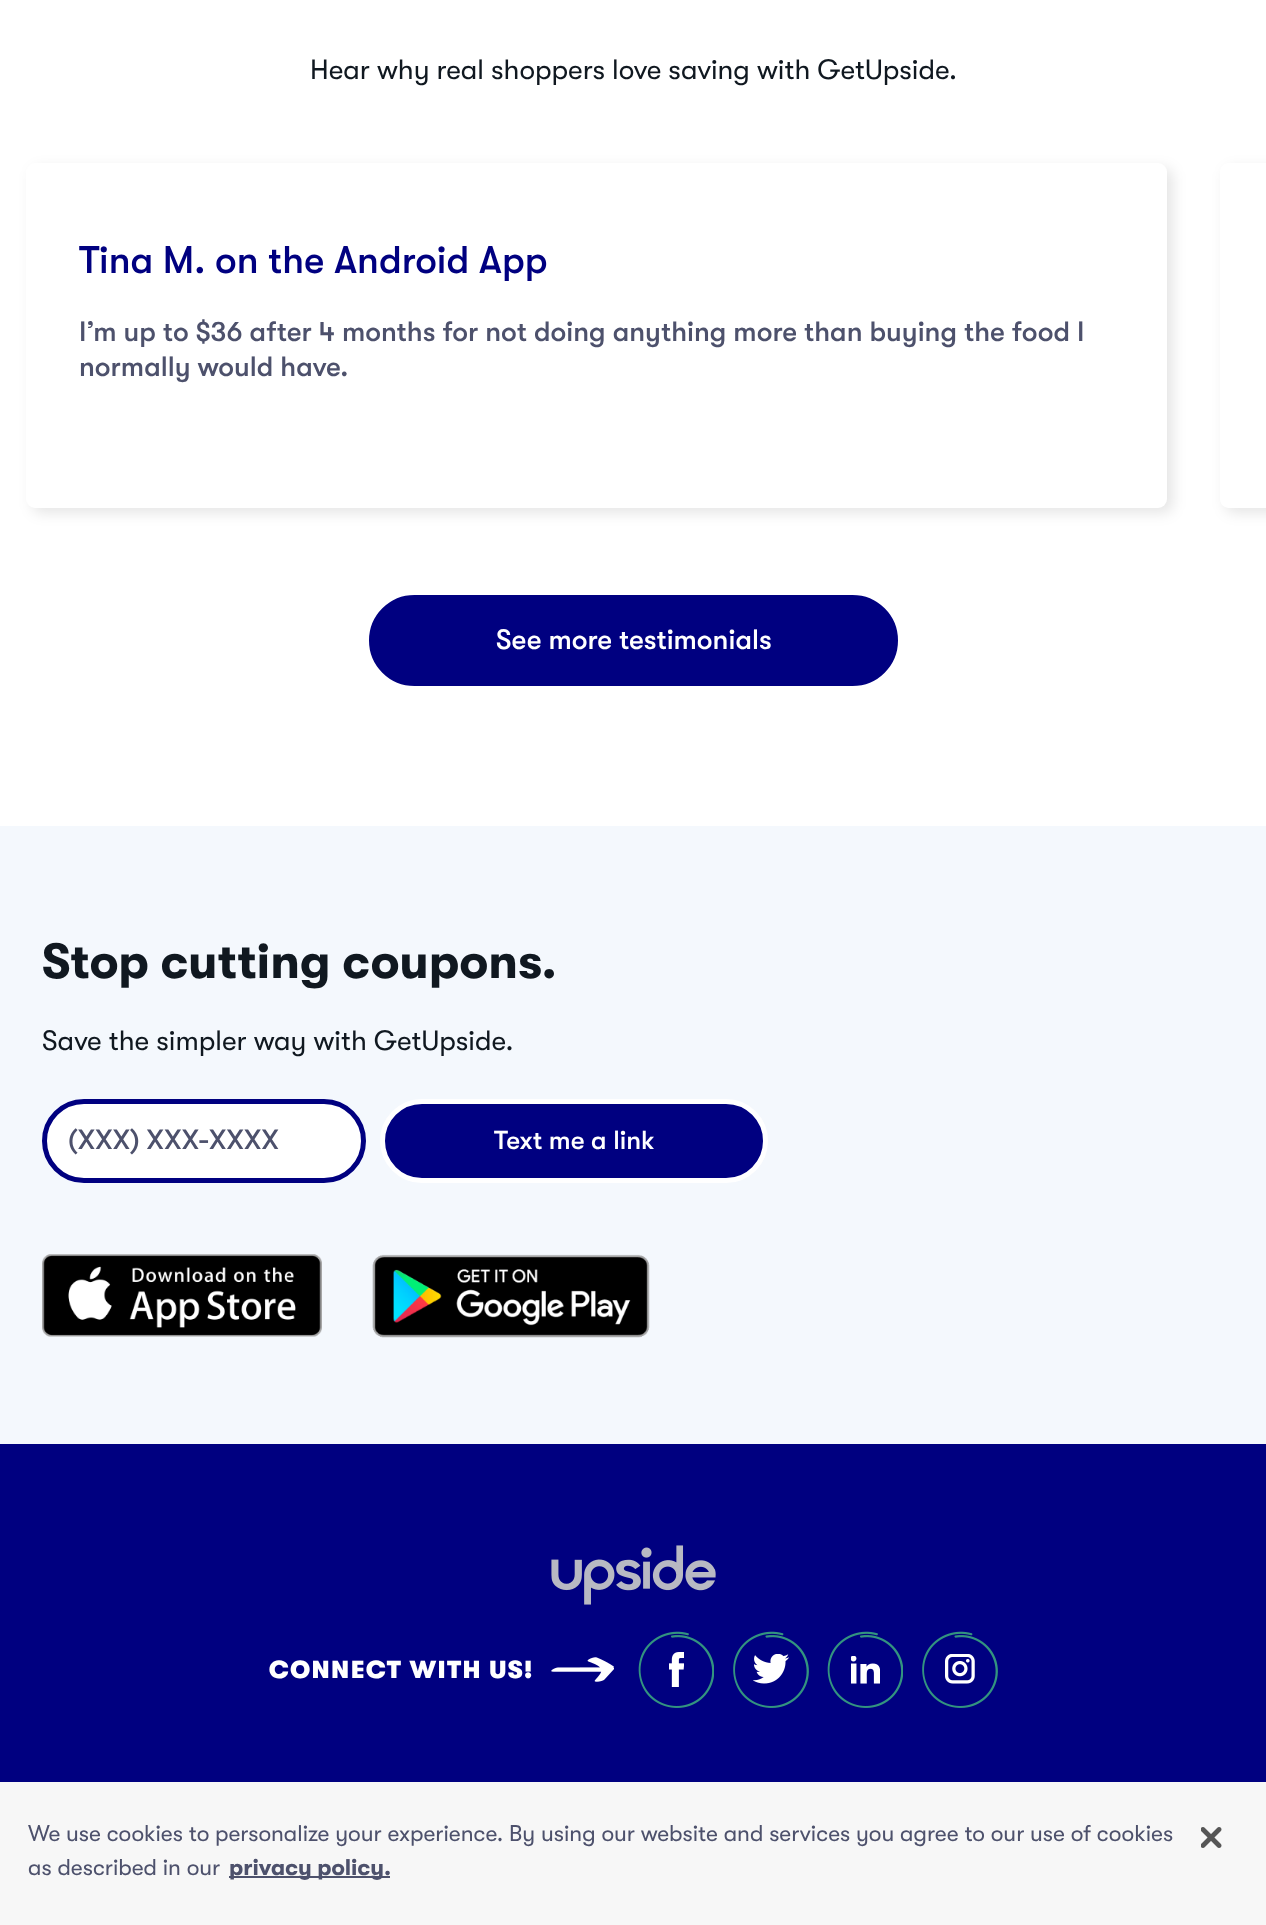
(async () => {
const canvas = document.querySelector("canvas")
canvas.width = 1266
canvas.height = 1925
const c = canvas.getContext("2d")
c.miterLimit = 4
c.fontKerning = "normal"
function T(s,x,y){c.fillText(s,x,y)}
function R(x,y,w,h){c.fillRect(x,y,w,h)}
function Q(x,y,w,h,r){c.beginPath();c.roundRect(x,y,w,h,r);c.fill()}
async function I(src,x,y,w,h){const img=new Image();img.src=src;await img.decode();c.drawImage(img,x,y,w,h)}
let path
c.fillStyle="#fff"
R(0,0,1266,1925)
c.font="28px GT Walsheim"
c.fillStyle="#101820"
T("Hear why real shoppers love saving with GetUpside.",310,79)
c.fillStyle="#0000001a"
c.filter="blur(7px)"
c.beginPath()
c.roundRect(32,168,1141,345,9)
c.fill()
c.filter="none"
c.fillStyle="#fff"
Q(26,163,1141,345,9)
c.font="500 38.5px GT Walsheim"
c.fillStyle="#000080"
T("Tina M. on the Android App",79,273)
c.font="500 28px GT Walsheim"
c.fillStyle="#4d516c"
T("I’m up to $36 after 4 months for not doing anything more than buying the food I",79,341)
T("normally would have.",79,376)
c.fillStyle="#0000001a"
c.filter="blur(7px)"
c.beginPath()
c.roundRect(1225,168,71,345,9)
c.fill()
c.filter="none"
c.fillStyle="#fff"
path = new Path2D("M1229 163h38v345h-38c-5 0-9-4-9-9v-327c0-5 4-9 9-9z")
c.fill(path)
c.fillStyle="#000080"
c.beginPath()
c.roundRect(371,597,525,87,43.5)
c.fill()
c.strokeStyle="#000080"
c.lineWidth=4
c.stroke()
c.fillStyle="#fff"
T("See more testimonials",496,649)
c.fillStyle="#f4f8fd"
R(0,826,1266,618)
c.font="bold 49px GT Walsheim"
c.fillStyle="#101820"
T("Stop cutting coupons.",42,978)
c.font="28px GT Walsheim"
T("Save the simpler way with GetUpside.",42,1050)
c.fillStyle="#fff"
c.beginPath()
c.roundRect(44.5,1101.5,319,79,39.5)
c.fill()
c.lineWidth=5
c.stroke()
c.font="500 28px GT Walsheim"
c.fillStyle="#4d516c"
T("(XXX) XXX-XXXX",68,1149)
c.fillStyle="#000080"
c.beginPath()
c.roundRect(382.5,1101.5,383,79,39.5)
c.fill()
c.strokeStyle="#fff"
c.stroke()
c.font="500 26.25px GT Walsheim"
c.fillStyle="#fff"
T("Text me a link",494,1149)
await I("1.png",42,1254,280,83)
await I("2.png",372,1254,278,84)
c.fillStyle="#000080"
R(0,1444,1266,338)
await I("3.png",551,1545,165,60)
c.letterSpacing="1.4px"
c.font="900 24.5px GT Walsheim"
c.fillStyle="#fff"
T("CONNECT WITH US!",269,1678)
await I("4.png",551,1657,63,25)
await I("5.png",638,1631,76,77)
await I("6.png",669,1652,15,35)
await I("7.png",733,1631,76,77)
await I("8.png",753,1654,36,30)
await I("5.png",827,1631,76,77)
await I("9.png",851,1656,29,28)
await I("7.png",922,1631,76,77)
await I("10.png",945,1654,30,30)
c.fillStyle="#f7f7f7"
R(0,1782,1266,143)
c.letterSpacing="0px"
c.font="22.75px GT Walsheim"
c.fillStyle="#4d516c"
T("We use cookies to personalize your experience. By using our website and services you agree to our use of cookies",28,1841)
T("as described in our",28,1875)
R(229,1876,161,2)
c.font="bold 22.75px GT Walsheim"
T("privacy policy.",229,1875)
await I("11.png",1201,1827,21,21)
})()
